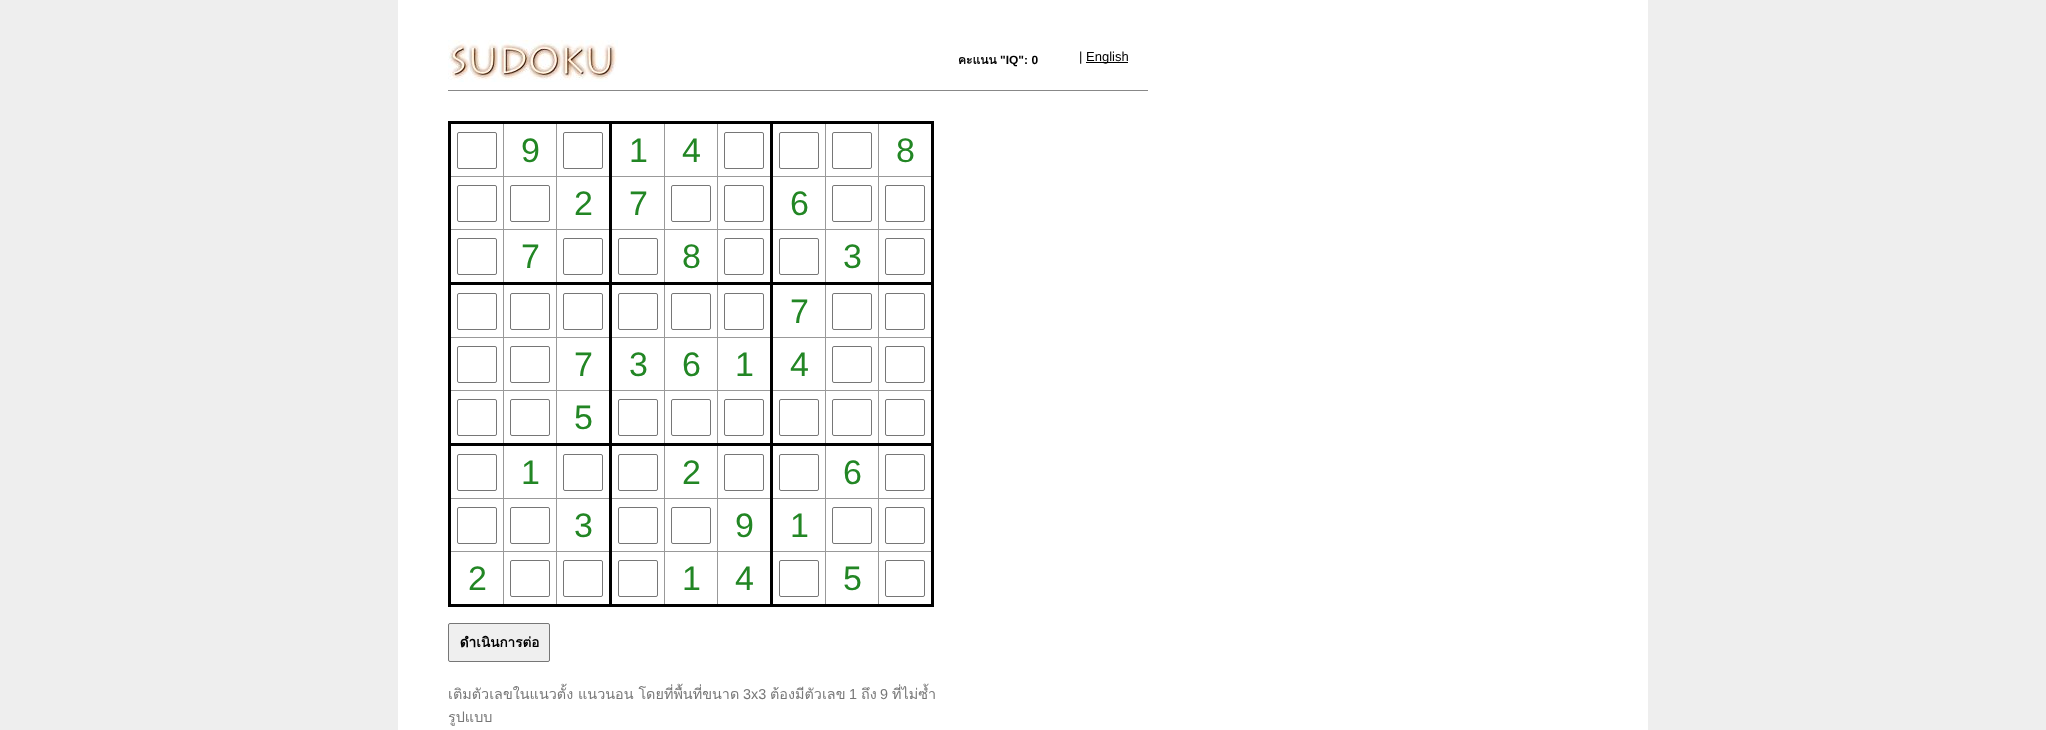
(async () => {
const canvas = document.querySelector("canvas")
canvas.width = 2046
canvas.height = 730
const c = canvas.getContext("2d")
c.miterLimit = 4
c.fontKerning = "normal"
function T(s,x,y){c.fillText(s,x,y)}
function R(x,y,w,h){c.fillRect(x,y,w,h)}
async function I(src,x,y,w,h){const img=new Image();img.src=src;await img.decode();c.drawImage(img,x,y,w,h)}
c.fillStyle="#eee"
R(0,0,2046,730)
c.fillStyle="#fff"
R(398,0,1250,730)
c.fillStyle="#888"
R(448,90,700,1)
await I("1.png",448,40,170,42)
c.font="bold 12px Loma"
c.fillStyle="#000"
T("คะแนน",958,64)
c.font="bold 12px Liberation Sans"
T("\"IQ\": 0",1000,64)
c.font="13px Liberation Sans"
T("|",1079,61)
R(1086,62,42,1)
T("English",1086,61)
c.fillStyle="#999"
R(878,176,55,1)
R(878,229,55,1)
R(878,337,55,1)
R(878,390,55,1)
R(878,498,55,1)
R(878,551,55,1)
R(878,551,1,55)
R(825,551,54,1)
R(878,498,1,54)
R(825,498,54,1)
R(878,444,1,55)
R(878,390,1,55)
R(825,390,54,1)
R(878,337,1,54)
R(825,337,54,1)
R(878,283,1,55)
R(878,229,1,55)
R(825,229,54,1)
R(878,176,1,54)
R(825,176,54,1)
R(825,551,1,55)
R(717,551,109,1)
R(825,498,1,54)
R(717,498,109,1)
R(825,444,1,55)
R(825,390,1,55)
R(717,390,109,1)
R(825,337,1,54)
R(717,337,109,1)
R(825,283,1,55)
R(825,229,1,55)
R(717,229,109,1)
R(825,176,1,54)
R(717,176,109,1)
R(717,551,1,55)
R(664,551,54,1)
R(717,498,1,54)
R(664,498,54,1)
R(717,444,1,55)
R(717,390,1,55)
R(664,390,54,1)
R(717,337,1,54)
R(664,337,54,1)
R(717,283,1,55)
R(717,229,1,55)
R(664,229,54,1)
R(717,176,1,54)
R(664,176,54,1)
R(664,551,1,55)
R(556,551,109,1)
R(664,498,1,54)
R(556,498,109,1)
R(664,444,1,55)
R(664,390,1,55)
R(556,390,109,1)
R(664,337,1,54)
R(556,337,109,1)
R(664,283,1,55)
R(664,229,1,55)
R(556,229,109,1)
R(664,176,1,54)
R(556,176,109,1)
R(556,551,1,55)
R(503,551,54,1)
R(556,498,1,54)
R(503,498,54,1)
R(556,444,1,55)
R(556,390,1,55)
R(503,390,54,1)
R(556,337,1,54)
R(503,337,54,1)
R(556,283,1,55)
R(556,229,1,55)
R(503,229,54,1)
R(556,176,1,54)
R(503,176,54,1)
R(503,551,1,55)
R(449,551,55,1)
R(503,498,1,54)
R(449,498,55,1)
R(503,444,1,55)
R(503,390,1,55)
R(449,390,55,1)
R(503,337,1,54)
R(449,337,55,1)
R(503,283,1,55)
R(503,229,1,55)
R(449,229,55,1)
R(503,176,1,54)
R(449,176,55,1)
R(503,122,1,55)
R(556,122,1,55)
R(664,122,1,55)
R(717,122,1,55)
R(825,122,1,55)
R(878,122,1,55)
c.fillStyle="#000"
R(448,121,486,3)
R(931,121,3,486)
R(448,604,486,3)
R(448,121,3,486)
c.beginPath()
c.roundRect(457.5,132.5,39,36,1.5)
c.strokeStyle="#767676"
c.stroke()
c.font="34px Liberation Sans"
c.fillStyle="#228624"
T("9",521,162)
c.beginPath()
c.roundRect(563.5,132.5,39,36,1.5)
c.stroke()
T("1",629,162)
T("4",682,162)
c.beginPath()
c.roundRect(724.5,132.5,39,36,1.5)
c.stroke()
c.beginPath()
c.roundRect(779.5,132.5,39,36,1.5)
c.stroke()
c.beginPath()
c.roundRect(832.5,132.5,39,36,1.5)
c.stroke()
T("8",896,162)
c.beginPath()
c.roundRect(457.5,185.5,39,36,1.5)
c.stroke()
c.beginPath()
c.roundRect(510.5,185.5,39,36,1.5)
c.stroke()
T("2",574,215)
T("7",629,215)
c.beginPath()
c.roundRect(671.5,185.5,39,36,1.5)
c.stroke()
c.beginPath()
c.roundRect(724.5,185.5,39,36,1.5)
c.stroke()
T("6",790,215)
c.beginPath()
c.roundRect(832.5,185.5,39,36,1.5)
c.stroke()
c.beginPath()
c.roundRect(885.5,185.5,39,36,1.5)
c.stroke()
c.beginPath()
c.roundRect(457.5,238.5,39,36,1.5)
c.stroke()
c.fillStyle="#000"
R(770,282,164,3)
R(770,443,164,3)
R(770,497,3,110)
R(770,443,3,57)
R(609,443,164,3)
R(770,336,3,110)
R(770,282,3,57)
R(609,282,164,3)
R(609,497,3,110)
R(609,443,3,57)
R(448,443,164,3)
R(609,336,3,110)
R(609,282,3,57)
R(448,282,164,3)
R(609,121,3,164)
c.beginPath()
c.roundRect(618.5,238.5,39,36,1.5)
c.stroke()
R(770,121,3,164)
c.beginPath()
c.roundRect(779.5,238.5,39,36,1.5)
c.stroke()
c.fillStyle="#228624"
T("7",521,268)
c.beginPath()
c.roundRect(563.5,238.5,39,36,1.5)
c.stroke()
T("8",682,268)
c.beginPath()
c.roundRect(724.5,238.5,39,36,1.5)
c.stroke()
T("3",843,268)
c.beginPath()
c.roundRect(885.5,238.5,39,36,1.5)
c.stroke()
c.beginPath()
c.roundRect(563.5,293.5,39,36,1.5)
c.stroke()
c.beginPath()
c.roundRect(724.5,293.5,39,36,1.5)
c.stroke()
c.beginPath()
c.roundRect(510.5,293.5,39,36,1.5)
c.stroke()
c.beginPath()
c.roundRect(618.5,293.5,39,36,1.5)
c.stroke()
c.beginPath()
c.roundRect(671.5,293.5,39,36,1.5)
c.stroke()
c.beginPath()
c.roundRect(885.5,293.5,39,36,1.5)
c.stroke()
c.beginPath()
c.roundRect(457.5,293.5,39,36,1.5)
c.stroke()
T("7",790,323)
c.beginPath()
c.roundRect(832.5,293.5,39,36,1.5)
c.stroke()
c.beginPath()
c.roundRect(457.5,346.5,39,36,1.5)
c.stroke()
c.beginPath()
c.roundRect(510.5,346.5,39,36,1.5)
c.stroke()
T("7",574,376)
T("3",629,376)
T("6",682,376)
T("1",735,376)
T("4",790,376)
c.beginPath()
c.roundRect(832.5,346.5,39,36,1.5)
c.stroke()
c.beginPath()
c.roundRect(885.5,346.5,39,36,1.5)
c.stroke()
c.beginPath()
c.roundRect(457.5,399.5,39,36,1.5)
c.stroke()
c.beginPath()
c.roundRect(510.5,399.5,39,36,1.5)
c.stroke()
c.beginPath()
c.roundRect(618.5,399.5,39,36,1.5)
c.stroke()
c.beginPath()
c.roundRect(671.5,399.5,39,36,1.5)
c.stroke()
c.beginPath()
c.roundRect(779.5,399.5,39,36,1.5)
c.stroke()
T("5",574,429)
c.beginPath()
c.roundRect(724.5,399.5,39,36,1.5)
c.stroke()
c.beginPath()
c.roundRect(832.5,399.5,39,36,1.5)
c.stroke()
c.beginPath()
c.roundRect(885.5,399.5,39,36,1.5)
c.stroke()
c.beginPath()
c.roundRect(563.5,454.5,39,36,1.5)
c.stroke()
c.beginPath()
c.roundRect(724.5,454.5,39,36,1.5)
c.stroke()
c.beginPath()
c.roundRect(618.5,454.5,39,36,1.5)
c.stroke()
c.beginPath()
c.roundRect(885.5,454.5,39,36,1.5)
c.stroke()
c.beginPath()
c.roundRect(457.5,454.5,39,36,1.5)
c.stroke()
T("1",521,484)
T("2",682,484)
c.beginPath()
c.roundRect(779.5,454.5,39,36,1.5)
c.stroke()
T("6",843,484)
c.beginPath()
c.roundRect(457.5,507.5,39,36,1.5)
c.stroke()
c.beginPath()
c.roundRect(510.5,507.5,39,36,1.5)
c.stroke()
c.beginPath()
c.roundRect(618.5,507.5,39,36,1.5)
c.stroke()
c.beginPath()
c.roundRect(671.5,507.5,39,36,1.5)
c.stroke()
c.beginPath()
c.roundRect(832.5,507.5,39,36,1.5)
c.stroke()
c.beginPath()
c.roundRect(885.5,507.5,39,36,1.5)
c.stroke()
T("3",574,537)
T("9",735,537)
T("1",790,537)
c.beginPath()
c.roundRect(510.5,560.5,39,36,1.5)
c.stroke()
c.beginPath()
c.roundRect(618.5,560.5,39,36,1.5)
c.stroke()
c.beginPath()
c.roundRect(779.5,560.5,39,36,1.5)
c.stroke()
T("2",468,590)
c.beginPath()
c.roundRect(563.5,560.5,39,36,1.5)
c.stroke()
T("1",682,590)
T("4",735,590)
T("5",843,590)
c.beginPath()
c.roundRect(885.5,560.5,39,36,1.5)
c.stroke()
c.fillStyle="#efefef"
c.beginPath()
c.roundRect(448.5,623.5,101,38,1.5)
c.fill()
c.stroke()
c.font="bold 13.5px Loma"
c.fillStyle="#000"
T("ดำเนินการต่อ",460,647)
c.font="14.4px Loma"
c.fillStyle="#777"
T("เติมตัวเลขในแนวตั้ง แนวนอน โดยที่พื้นที่ขนาด",448,699)
c.font="14.4px Liberation Sans"
T("3x3",743,699)
c.font="14.4px Loma"
T("ต้องมีตัวเลข",770,699)
c.font="14.4px Liberation Sans"
T("1",849,699)
c.font="14.4px Loma"
T("ถึง",861,699)
c.font="14.4px Liberation Sans"
T("9",880,699)
c.font="14.4px Loma"
T("ที่ไม่ซ้ำ",892,699)
T("รูปแบบ",448,722)
})()
